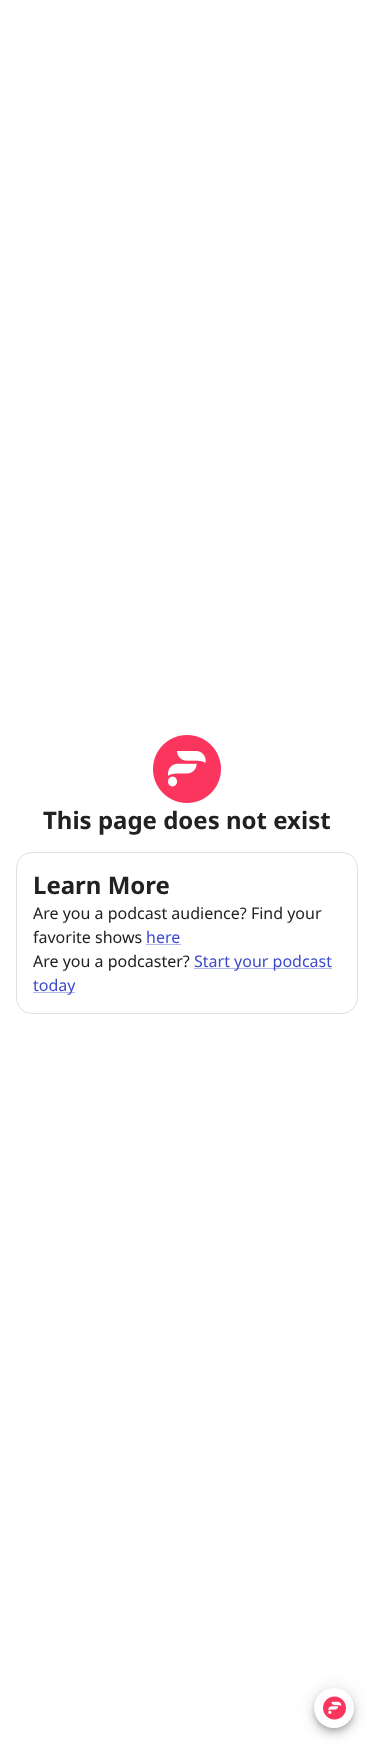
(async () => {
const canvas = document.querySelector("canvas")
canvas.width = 374
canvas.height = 1748
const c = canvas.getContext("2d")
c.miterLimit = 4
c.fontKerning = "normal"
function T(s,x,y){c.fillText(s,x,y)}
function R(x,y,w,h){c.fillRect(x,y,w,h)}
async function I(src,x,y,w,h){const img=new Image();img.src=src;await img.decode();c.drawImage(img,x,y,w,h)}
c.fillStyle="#fff"
R(0,0,374,1748)
await I("1.png",153,735,68,68)
c.font="bold 24px Noto Sans"
c.fillStyle="#212121"
T("This page does not exist",43,829)
c.beginPath()
c.roundRect(16.5,852.5,341,161,15.5)
c.strokeStyle="#e0e0e0"
c.stroke()
T("Learn More",33,894)
c.font="16px Noto Sans"
T("Are you a podcast audience? Find your",33,919)
T("favorite shows",33,943)
c.fillStyle="#3b4acb"
T("here",146,943)
c.fillStyle="#b1b7ea"
R(146,944,35,1)
c.fillStyle="#212121"
T("Are you a podcaster?",33,967)
c.fillStyle="#b1b7ea"
R(194,968,138,1)
c.fillStyle="#3b4acb"
T("Start your podcast",194,967)
c.fillStyle="#b1b7ea"
R(33,992,42,1)
c.fillStyle="#3b4acb"
T("today",33,991)
c.fillStyle="#0000001f"
c.filter="blur(9px)"
c.beginPath()
c.roundRect(314,1689,40,40,20)
c.fill()
c.filter="none"
c.fillStyle="#00000024"
c.filter="blur(5px)"
c.beginPath()
c.roundRect(314,1694,40,40,20)
c.fill()
c.filter="none"
c.fillStyle="#00000033"
c.filter="blur(2.5px)"
c.beginPath()
c.roundRect(315,1692,38,38,19)
c.fill()
c.filter="none"
c.fillStyle="#fff"
c.beginPath()
c.arc(334,1708,20,0,7)
c.fill()
await I("2.png",323,1696,23,24)
})()
